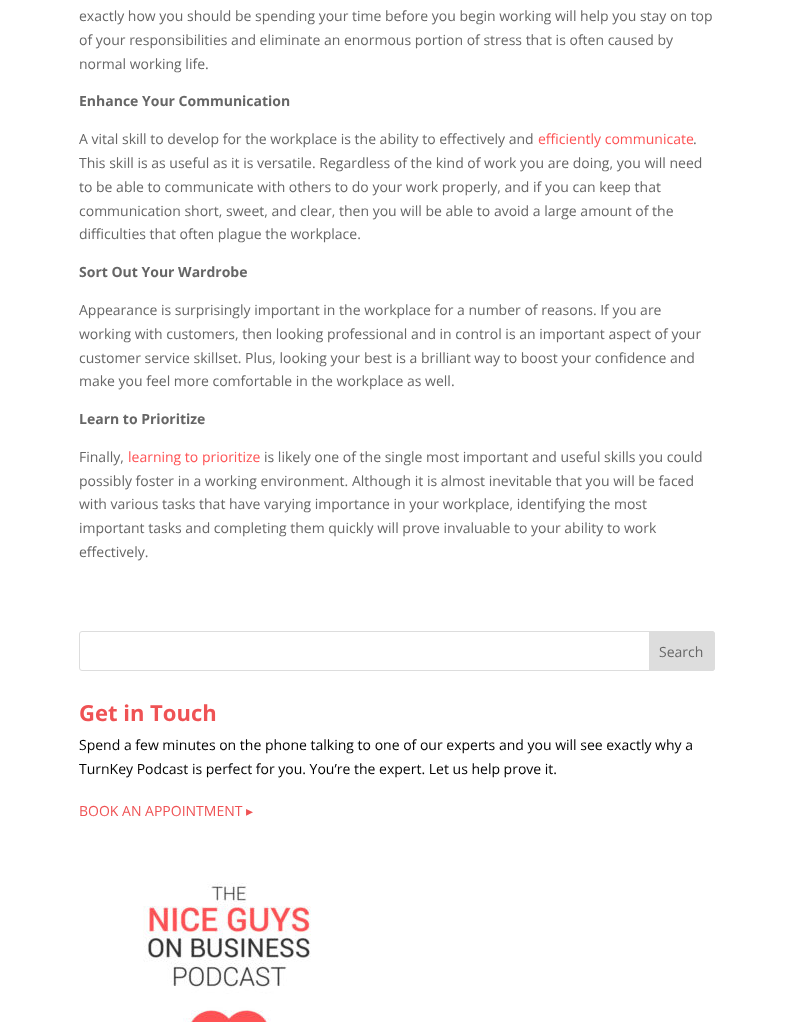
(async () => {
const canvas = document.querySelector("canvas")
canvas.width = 794
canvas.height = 1022
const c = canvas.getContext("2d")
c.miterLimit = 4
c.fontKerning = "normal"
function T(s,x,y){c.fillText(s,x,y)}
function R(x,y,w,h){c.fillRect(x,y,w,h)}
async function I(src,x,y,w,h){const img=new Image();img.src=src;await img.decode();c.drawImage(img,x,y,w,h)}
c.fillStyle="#fff"
R(0,0,794,1022)
c.font="14px Open Sans"
c.fillStyle="#666"
T("exactly how you should be spending your time before you begin working will help you stay on top",79,21)
T("of your responsibilities and eliminate an enormous portion of stress that is often caused by",79,45)
T("normal working life.",79,69)
c.font="bold 14px Open Sans"
T("Enhance Your Communication",79,106)
c.font="14px Open Sans"
T("A vital skill to develop for the workplace is the ability to effectively and",79,144)
c.fillStyle="#fe5254"
T("efficiently communicate",538,144)
c.fillStyle="#666"
T(".",693,144)
T("This skill is as useful as it is versatile. Regardless of the kind of work you are doing, you will need",79,168)
T("to be able to communicate with others to do your work properly, and if you can keep that",79,192)
T("communication short, sweet, and clear, then you will be able to avoid a large amount of the",79,216)
T("difficulties that often plague the workplace.",79,239)
c.font="bold 14px Open Sans"
T("Sort Out Your Wardrobe",79,277)
c.font="14px Open Sans"
T("Appearance is surprisingly important in the workplace for a number of reasons. If you are",79,315)
T("working with customers, then looking professional and in control is an important aspect of your",79,339)
T("customer service skillset. Plus, looking your best is a brilliant way to boost your confidence and",79,363)
T("make you feel more comfortable in the workplace as well.",79,386)
c.font="bold 14px Open Sans"
T("Learn to Prioritize",79,424)
c.font="14px Open Sans"
T("Finally,",79,462)
c.fillStyle="#fe5254"
T("learning to prioritize",128,462)
c.fillStyle="#666"
T("is likely one of the single most important and useful skills you could",264,462)
T("possibly foster in a working environment. Although it is almost inevitable that you will be faced",79,486)
T("with various tasks that have varying importance in your workplace, identifying the most",79,509)
T("important tasks and completing them quickly will prove invaluable to your ability to work",79,533)
T("effectively.",79,557)
c.beginPath()
c.roundRect(79.5,631.5,635,39,2.5)
c.strokeStyle="#ddd"
c.stroke()
c.fillStyle="#ddd"
c.beginPath()
c.roundRect(649.5,631.5,65,39,[0,2.5,2.5,0])
c.fill()
c.stroke()
c.fillStyle="#666"
T("Search",659,657)
c.font="bold 22px Open Sans"
c.fillStyle="#ef5254"
T("Get in Touch",79,721)
c.font="14px Open Sans"
c.fillStyle="#000"
T("Spend a few minutes on the phone talking to one of our experts and you will see exactly why a",79,750)
T("TurnKey Podcast is perfect for you. You’re the expert. Let us help prove it.",79,774)
c.fillStyle="#ef5254"
T("BOOK AN APPOINTMENT",79,816)
c.font="14px DejaVu Sans"
T("▸",246,816)
await I("1.png",143,882,168,140)
})()
